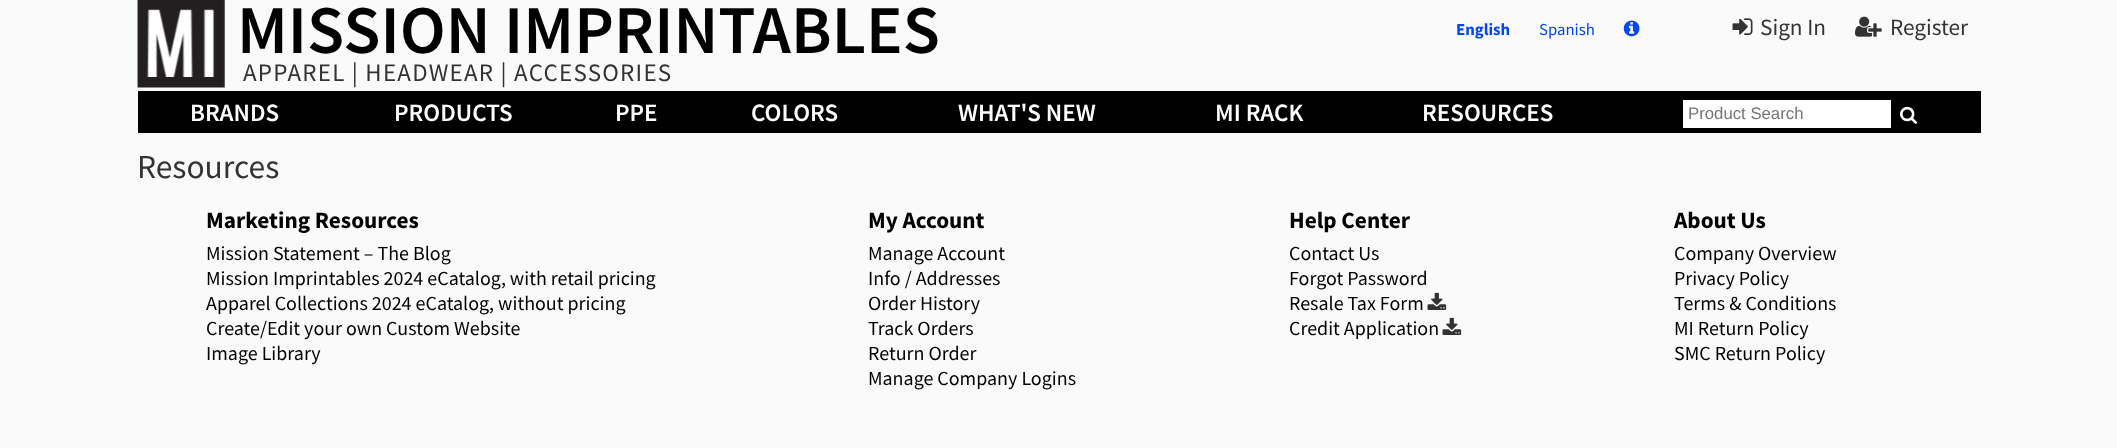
(async () => {
const canvas = document.querySelector("canvas")
canvas.width = 2117
canvas.height = 448
const c = canvas.getContext("2d")
c.miterLimit = 4
c.fontKerning = "normal"
function T(s,x,y){c.fillText(s,x,y)}
function R(x,y,w,h){c.fillRect(x,y,w,h)}
async function I(src,x,y,w,h){const img=new Image();img.src=src;await img.decode();c.drawImage(img,x,y,w,h)}
c.fillStyle="#fafafa"
R(0,0,2117,448)
await I("1.png",137,0,88,88)
c.font="600 68.25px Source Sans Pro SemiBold"
c.fillStyle="#000"
T("MISSION IMPRINTABLES",237,53)
c.letterSpacing="1.25px"
c.font="25px Source Sans Pro"
c.fillStyle="#333"
T("APPAREL | HEADWEAR | ACCESSORIES",243,81)
c.letterSpacing="0px"
c.font="bold 16.75px Source Sans Pro"
c.fillStyle="#0047ed"
T("English",1456,35)
c.font="16.75px Source Sans Pro"
T("Spanish",1539,35)
await I("2.png",1623,20,17,17)
await I("3.png",1732,18,21,17)
c.font="23.25px Source Sans Pro"
c.fillStyle="#333"
T("Sign In",1760,35)
await I("4.png",1855,16,27,21)
T("Register",1890,35)
c.fillStyle="#000"
R(138,91,1843,42)
c.font="600 25px Source Sans Pro SemiBold"
c.fillStyle="#fff"
T("BRANDS",190,121)
T("PRODUCTS",394,121)
T("PPE",615,121)
T("COLORS",751,121)
T("WHAT'S NEW",958,121)
T("MI RACK",1215,121)
T("RESOURCES",1422,121)
R(1683,100,208,28)
c.font="16.75px Liberation Sans"
c.fillStyle="#757575"
T("Product Search",1688,119)
await I("5.png",1900,106,17,18)
c.font="33.5px Source Sans Pro"
c.fillStyle="#333"
T("Resources",137,178)
c.font="bold 23.25px Source Sans Pro"
c.fillStyle="#000"
T("Marketing Resources",206,228)
c.font="20px Source Sans Pro"
T("Mission Statement – The Blog",206,260)
T("Mission Imprintables 2024 eCatalog, with retail pricing",206,285)
T("Apparel Collections 2024 eCatalog, without pricing",206,310)
T("Create/Edit your own Custom Website",206,335)
T("Image Library",206,360)
c.font="bold 23.25px Source Sans Pro"
T("My Account",868,228)
c.font="20px Source Sans Pro"
T("Manage Account",868,260)
T("Info / Addresses",868,285)
T("Order History",868,310)
T("Track Orders",868,335)
T("Return Order",868,360)
T("Manage Company Logins",868,385)
c.font="bold 23.25px Source Sans Pro"
T("Help Center",1289,228)
c.font="20px Source Sans Pro"
T("Contact Us",1289,260)
T("Forgot Password",1289,285)
T("Resale Tax Form",1289,310)
await I("6.png",1427,292,20,18)
T("Credit Application",1289,335)
await I("6.png",1442,317,20,18)
c.font="bold 23.25px Source Sans Pro"
T("About Us",1674,228)
c.font="20px Source Sans Pro"
T("Company Overview",1674,260)
T("Privacy Policy",1674,285)
T("Terms & Conditions",1674,310)
T("MI Return Policy",1674,335)
T("SMC Return Policy",1674,360)
})()
